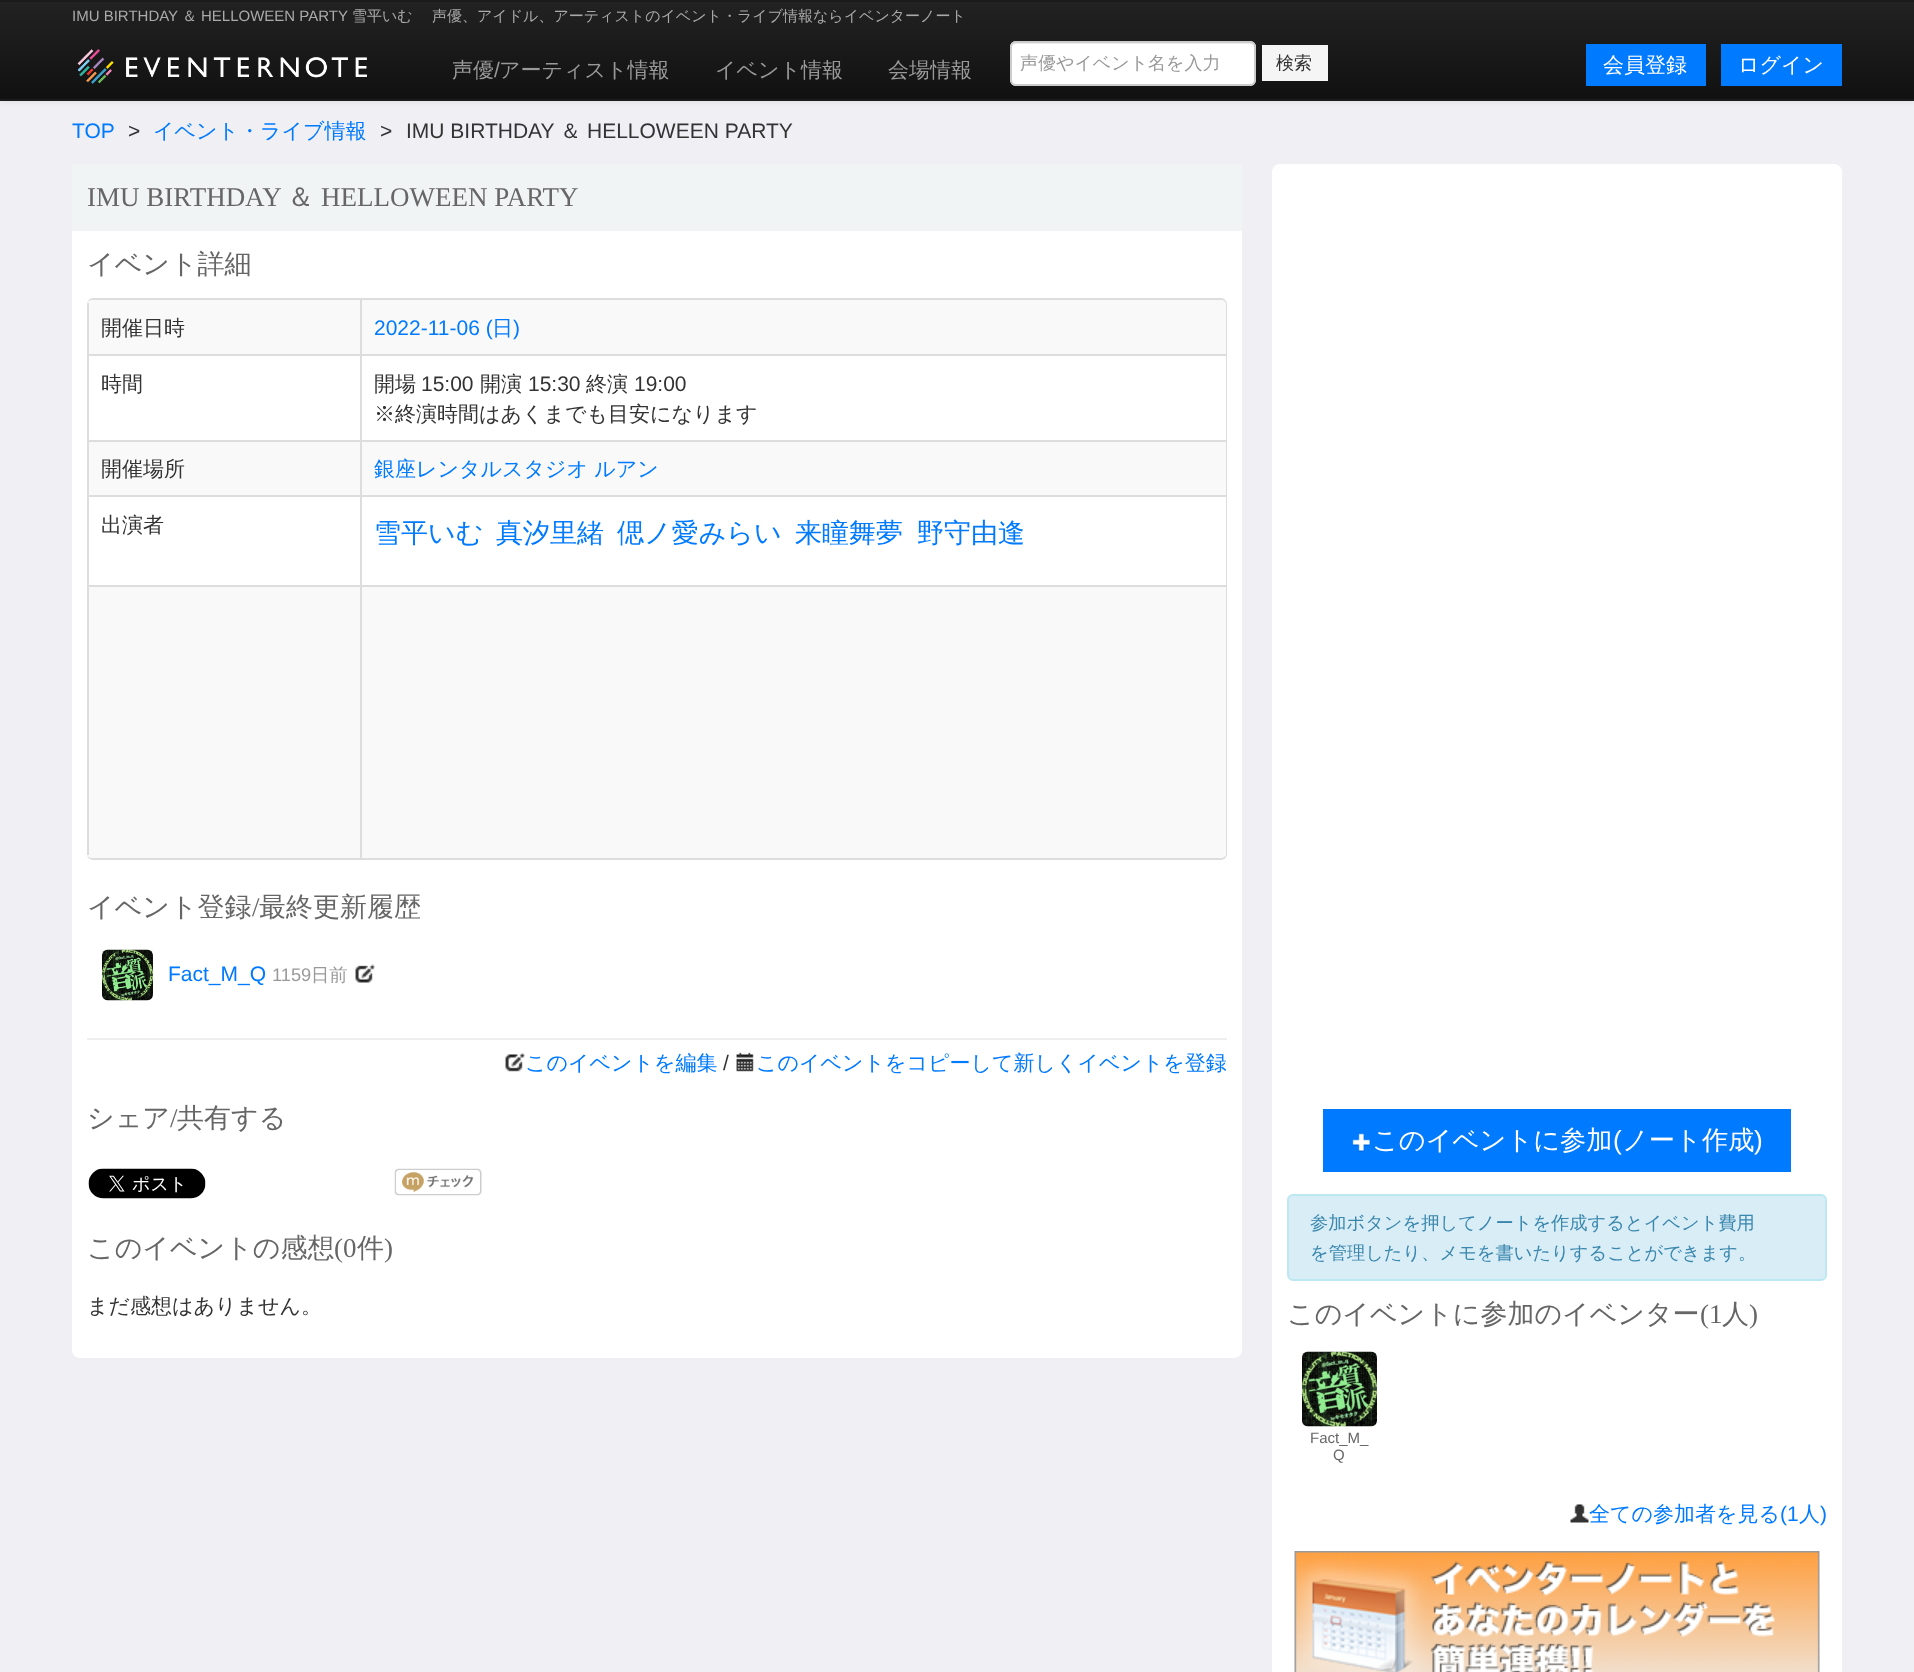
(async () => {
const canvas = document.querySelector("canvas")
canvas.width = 1914
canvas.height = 1672
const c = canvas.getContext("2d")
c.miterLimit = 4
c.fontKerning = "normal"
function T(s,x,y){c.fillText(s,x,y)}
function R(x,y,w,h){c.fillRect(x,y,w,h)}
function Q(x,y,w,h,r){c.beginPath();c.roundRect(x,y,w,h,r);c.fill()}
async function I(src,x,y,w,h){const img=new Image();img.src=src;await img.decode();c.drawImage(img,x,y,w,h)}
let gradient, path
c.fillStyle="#efeff4"
R(0,0,1914,1672)
c.fillStyle="#00000012"
c.filter="blur(3px)"
c.beginPath()
c.rect(0,2,1914,100)
c.fill()
c.filter="none"
c.fillStyle="#1b1b1b"
R(0,0,1914,101)
gradient = c.createLinearGradient(957,1.5,957,99)
gradient.addColorStop(0,"#222")
gradient.addColorStop(1,"#111")
c.fillStyle = gradient
R(0,2,1914,97)
c.font="15px Liberation Sans"
c.fillStyle="#aaa"
T("IMU BIRTHDAY",72,21)
c.font="500 15px WenQuanYi Zen Hei"
T("＆",182,21)
c.font="15px Liberation Sans"
T("HELLOWEEN PARTY",201,21)
c.font="500 15px WenQuanYi Zen Hei"
T("雪平いむ",352,21)
T("声優、アイドル、アーティストのイベント・ライブ情報ならイベンターノート",432,21)
await I("1.png",77,49,290,35)
c.font="500 21px WenQuanYi Zen Hei"
c.fillStyle="#999"
T("声優",452,77)
c.font="21px Liberation Sans"
T("/",494,77)
c.font="500 21px WenQuanYi Zen Hei"
T("アーティスト情報",499,77)
T("イベント情報",715,77)
T("会場情報",888,77)
c.fillStyle="#fff"
Q(1010,41,246,45,6)
c.fillStyle="#ececec"
path = new Path2D("M1016 44h234c2 0 4 2 4 4v-1c0-3-2-5-5-5h-233c-3 0-5 2-5 5v1c0-2 2-4 5-4z")
c.fill(path)
c.beginPath()
c.roundRect(1011,42,244,43,5)
c.strokeStyle="#ccc"
c.lineWidth=2
c.stroke()
c.font="500 18px WenQuanYi Zen Hei"
c.fillStyle="#999"
T("声優やイベント名を入力",1020,69)
c.fillStyle="#f5f5f5"
R(1262,45,66,36)
c.fillStyle="#333"
T("検索",1276,69)
c.fillStyle="#007aff"
R(1586,44,120,42)
c.font="500 21px WenQuanYi Zen Hei"
c.fillStyle="#fff"
T("会員登録",1603,72)
c.fillStyle="#007aff"
R(1721,44,121,42)
c.fillStyle="#fff"
T("ログイン",1738,72)
c.font="21px Liberation Sans"
c.fillStyle="#007aff"
T("TOP",72,138)
c.fillStyle="#333"
T(">",128,138)
c.font="500 21px WenQuanYi Zen Hei"
c.fillStyle="#007aff"
T("イベント・ライブ情報",153,138)
c.font="21px Liberation Sans"
c.fillStyle="#333"
T(">",380,138)
T("IMU BIRTHDAY",406,138)
c.font="500 21px WenQuanYi Zen Hei"
T("＆",560,138)
c.font="21px Liberation Sans"
T("HELLOWEEN PARTY",587,138)
c.fillStyle="#fff"
Q(72,164,1170,1194,8)
c.fillStyle="#f0f4f5"
R(72,164,1170,67)
c.font="27px Liberation Serif"
c.fillStyle="#666"
T("IMU BIRTHDAY",87,206)
c.font="500 27px WenQuanYi Zen Hei"
T("＆",287,206)
c.font="27px Liberation Serif"
T("HELLOWEEN PARTY",321,206)
c.font="500 27px WenQuanYi Zen Hei"
T("イベント詳細",87,273)
c.fillStyle="#ddd"
path = new Path2D("M93 298h1128c3 0 6 3 6 6v550c0 3-3 6-6 6h-1128c-3 0-6-3-6-6v-550c0-3 3-6 6-6zm0 2h1128c2 0 5 2 5 4v550c0 2-3 4-5 4h-1128c-3 0-6-2-6-4v-550c0-2 3-4 6-4z")
c.fill(path,"evenodd")
c.fillStyle="#f9f9f9"
c.beginPath()
c.roundRect(87,300,273,54,[6,0,0,0])
c.fill()
c.fillStyle="#ddd"
R(87,303,2,51)
c.font="500 21px WenQuanYi Zen Hei"
c.fillStyle="#333"
T("開催日時",101,335)
c.fillStyle="#f9f9f9"
c.beginPath()
c.roundRect(360,300,866,54,[0,6,0,0])
c.fill()
c.fillStyle="#ddd"
R(360,300,2,54)
c.font="21px Liberation Sans"
c.fillStyle="#007aff"
T("2022-11-06 (",374,335)
c.font="500 21px WenQuanYi Zen Hei"
T("日",492,335)
c.font="21px Liberation Sans"
T(")",513,335)
c.fillStyle="#ddd"
R(87,354,1139,2)
R(87,354,2,86)
c.font="500 21px WenQuanYi Zen Hei"
c.fillStyle="#333"
T("時間",101,391)
c.fillStyle="#ddd"
R(360,354,2,86)
c.fillStyle="#333"
T("開場",374,391)
c.font="21px Liberation Sans"
T("15:00",421,391)
c.font="500 21px WenQuanYi Zen Hei"
T("開演",480,391)
c.font="21px Liberation Sans"
T("15:30",528,391)
c.font="500 21px WenQuanYi Zen Hei"
T("終演",586,391)
c.font="21px Liberation Sans"
T("19:00",634,391)
c.font="500 21px WenQuanYi Zen Hei"
T("※終演時間はあくまでも目安になります",374,421)
c.fillStyle="#f9f9f9"
R(89,442,271,53)
c.fillStyle="#ddd"
R(87,440,1139,2)
R(87,440,2,55)
c.fillStyle="#333"
T("開催場所",101,476)
c.fillStyle="#f9f9f9"
R(362,442,864,53)
c.fillStyle="#ddd"
R(360,440,2,55)
c.fillStyle="#007aff"
T("銀座レンタルスタジオ ルアン",374,476)
c.fillStyle="#ddd"
R(87,495,1139,2)
R(87,495,2,90)
c.fillStyle="#333"
T("出演者",101,532)
c.fillStyle="#ddd"
R(360,495,2,90)
c.font="500 27px WenQuanYi Zen Hei"
c.fillStyle="#007aff"
T("雪平いむ",374,542)
T("真汐里緒",496,542)
T("偲ノ愛みらい",617,542)
T("来瞳舞夢",795,542)
T("野守由逢",917,542)
c.fillStyle="#f9f9f9"
c.beginPath()
c.roundRect(87,585,273,273,[0,0,0,6])
c.fill()
c.fillStyle="#ddd"
R(87,585,273,2)
R(87,585,2,270)
c.fillStyle="#f9f9f9"
c.beginPath()
c.roundRect(360,585,866,273,[0,0,6,0])
c.fill()
c.fillStyle="#ddd"
R(360,585,866,2)
R(360,585,2,273)
c.fillStyle="#666"
T("イベント登録",87,916)
c.font="27px Liberation Serif"
T("/",252,916)
c.font="500 27px WenQuanYi Zen Hei"
T("最終更新履歴",259,916)
c.fillStyle="#eee"
R(87,1038,1140,2)
await I("2.png",102,949,51,52)
c.font="21px Liberation Sans"
c.fillStyle="#007aff"
T("Fact_M_Q",168,981)
c.font="18.25px Liberation Sans"
c.fillStyle="#999"
T("1159",272,981)
c.font="500 18.25px WenQuanYi Zen Hei"
T("日前",311,981)
await I("3.png",355,964,20,19)
await I("4.png",505,1052,20,20)
c.font="500 21px WenQuanYi Zen Hei"
c.fillStyle="#007aff"
T("このイベントを編集",525,1070)
c.font="21px Liberation Sans"
c.fillStyle="#333"
T("/",723,1070)
await I("5.png",736,1052,18,20)
c.font="500 21px WenQuanYi Zen Hei"
c.fillStyle="#007aff"
T("このイベントをコピーして新しくイベントを登録",756,1070)
c.font="500 27px WenQuanYi Zen Hei"
c.fillStyle="#666"
T("シェア",87,1127)
c.font="27px Liberation Serif"
T("/",170,1127)
c.font="500 27px WenQuanYi Zen Hei"
T("共有する",177,1127)
await I("6.png",88,1168,118,31)
await I("7.png",394,1168,88,28)
T("このイベントの感想",87,1257)
c.font="27px Liberation Serif"
T("(0",334,1257)
c.font="500 27px WenQuanYi Zen Hei"
T("件",357,1257)
c.font="27px Liberation Serif"
T(")",384,1257)
c.font="500 21px WenQuanYi Zen Hei"
c.fillStyle="#333"
T("まだ感想はありません。",87,1313)
c.fillStyle="#fff"
Q(1272,164,570,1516,8)
c.fillStyle="#007aff"
R(1323,1109,468,63)
await I("8.png",1352,1133,18,19)
c.font="500 26.25px WenQuanYi Zen Hei"
c.fillStyle="#fff"
T("このイベントに参加",1372,1149)
c.font="26.25px Liberation Sans"
T("(",1613,1149)
c.font="500 26.25px WenQuanYi Zen Hei"
T("ノート作成",1622,1149)
c.font="26.25px Liberation Sans"
T(")",1754,1149)
c.fillStyle="#d9edf7"
c.beginPath()
c.roundRect(1288,1195,538,85,5)
c.fill()
c.strokeStyle="#bce8f1"
c.stroke()
c.font="500 18.25px WenQuanYi Zen Hei"
c.fillStyle="#3a87ad"
T("参加ボタンを押してノートを作成するとイベント費用",1310,1229)
T("を管理したり、メモを書いたりすることができます。",1310,1259)
c.font="500 27px WenQuanYi Zen Hei"
c.fillStyle="#666"
T("このイベントに参加のイベンター",1287,1323)
c.font="27px Liberation Serif"
T("(1",1700,1323)
c.font="500 27px WenQuanYi Zen Hei"
T("人",1722,1323)
c.font="27px Liberation Serif"
T(")",1749,1323)
await I("9.png",1302,1351,75,76)
c.font="15px Liberation Sans"
T("Fact_M_",1310,1443)
T("Q",1333,1460)
await I("10.png",1570,1504,19,19)
c.font="500 21px WenQuanYi Zen Hei"
c.fillStyle="#007aff"
T("全ての参加者を見る",1589,1521)
c.font="21px Liberation Sans"
T("(1",1780,1521)
c.font="500 21px WenQuanYi Zen Hei"
T("人",1799,1521)
c.font="21px Liberation Sans"
T(")",1820,1521)
await I("11.png",1294,1551,526,121)
})()
